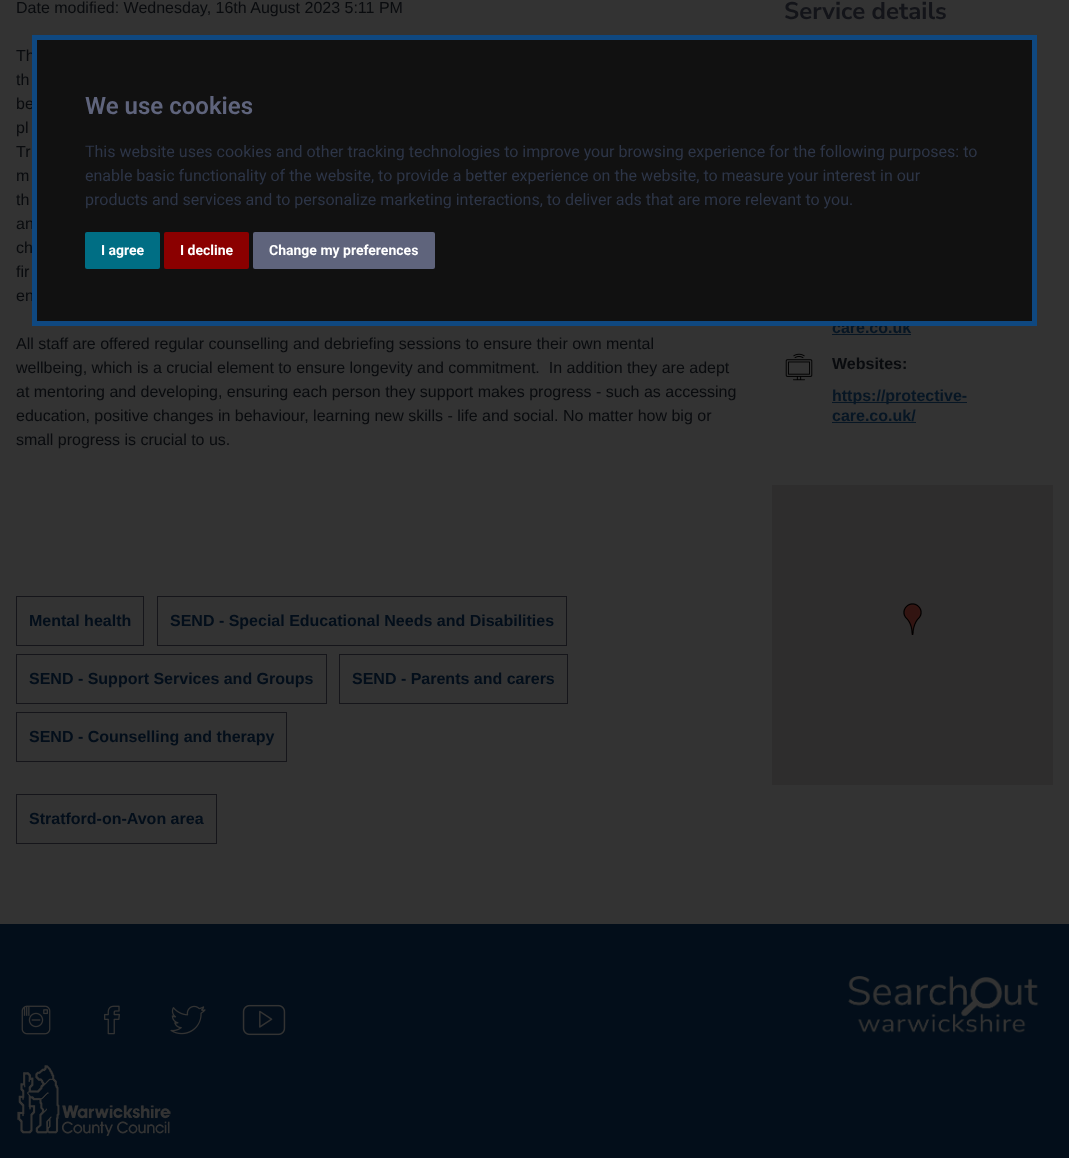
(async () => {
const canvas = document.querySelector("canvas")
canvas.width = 1069
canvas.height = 1158
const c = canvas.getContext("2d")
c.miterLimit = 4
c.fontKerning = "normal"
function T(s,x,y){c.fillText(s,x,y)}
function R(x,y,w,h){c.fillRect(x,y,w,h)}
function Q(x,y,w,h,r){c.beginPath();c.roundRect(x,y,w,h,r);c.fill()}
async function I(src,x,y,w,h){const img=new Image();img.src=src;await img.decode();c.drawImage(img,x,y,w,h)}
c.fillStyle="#333"
R(0,0,1069,1158)
c.font="16px Liberation Sans"
c.fillStyle="#090b0e"
T("Date modified: Wednesday, 16th August 2023 5:11 PM",16,13)
T("Th",16,61)
T("th",16,85)
T("be",16,109)
T("pl",16,133)
T("Tr",16,157)
T("m",16,181)
T("th",16,205)
T("an",16,229)
T("ch",16,253)
T("fir",16,277)
T("en",16,301)
T("All staff are offered regular counselling and debriefing sessions to ensure their own mental",16,349)
T("wellbeing, which is a crucial element to ensure longevity and commitment.  In addition they are adept",16,373)
T("at mentoring and developing, ensuring each person they support makes progress - such as accessing",16,397)
T("education, positive changes in behaviour, learning new skills - life and social. No matter how big or",16,421)
T("small progress is crucial to us.",16,445)
c.strokeStyle="#15151a"
c.strokeRect(16.5,596.5,127,49)
c.font="bold 16px Liberation Sans"
c.fillStyle="#030e1a"
T("Mental health",29,626)
c.strokeRect(157.5,596.5,409,49)
T("SEND - Special Educational Needs and Disabilities",170,626)
c.strokeRect(16.5,654.5,310,49)
T("SEND - Support Services and Groups",29,684)
c.strokeRect(339.5,654.5,228,49)
T("SEND - Parents and carers",352,684)
c.strokeRect(16.5,712.5,270,49)
T("SEND - Counselling and therapy",29,742)
c.strokeRect(16.5,794.5,200,49)
T("Stratford-on-Avon area",29,824)
c.font="bold 24px Nunito Sans"
c.fillStyle="#131419"
T("Service details",784,19)
c.font="bold 16px Liberation Sans"
c.fillStyle="#071624"
T("care.co.uk",832,333)
R(832,334,79,1)
await I("1.png",785,353,28,28)
c.fillStyle="#090b0e"
T("Websites:",832,369)
c.fillStyle="#071624"
R(832,402,135,1)
T("https://protective-",832,401)
T("care.co.uk/",832,421)
R(832,422,84,1)
c.fillStyle="#2e2d2d"
R(772,485,281,300)
await I("2.png",903,603,19,32)
c.fillStyle="#111"
c.beginPath()
c.rect(34.5,37.5,1000,286)
c.fill()
c.strokeStyle="#0f4880"
c.lineWidth=5
c.stroke()
c.font="600 24px Roboto"
c.fillStyle="#5f647c"
T("We use cookies",85,114)
c.font="16px Roboto"
c.fillStyle="#2d3547"
T("This website uses cookies and other tracking technologies to improve your browsing experience for the following purposes: to",85,157)
T("enable basic functionality of the website, to provide a better experience on the website, to measure your interest in our",85,181)
T("products and services and to personalize marketing interactions, to deliver ads that are more relevant to you.",85,205)
c.fillStyle="#006e84"
Q(85,232,75,37,2)
c.font="bold 14px Roboto"
c.fillStyle="#fff"
T("I agree",101,255)
c.fillStyle="#8b0000"
Q(164,232,85,37,2)
c.fillStyle="#fff"
T("I decline",180,255)
c.fillStyle="#5f647c"
Q(253,232,182,37,2)
c.fillStyle="#fff"
T("Change my preferences",269,255)
c.fillStyle="#030e1a"
R(0,924,1069,234)
await I("3.png",21,1005,30,30)
await I("4.png",104,1005,16,30)
await I("5.png",170,1005,36,30)
await I("6.png",242,1004,44,32)
await I("7.png",848,976,191,57)
await I("8.png",17,1065,154,71)
})()
